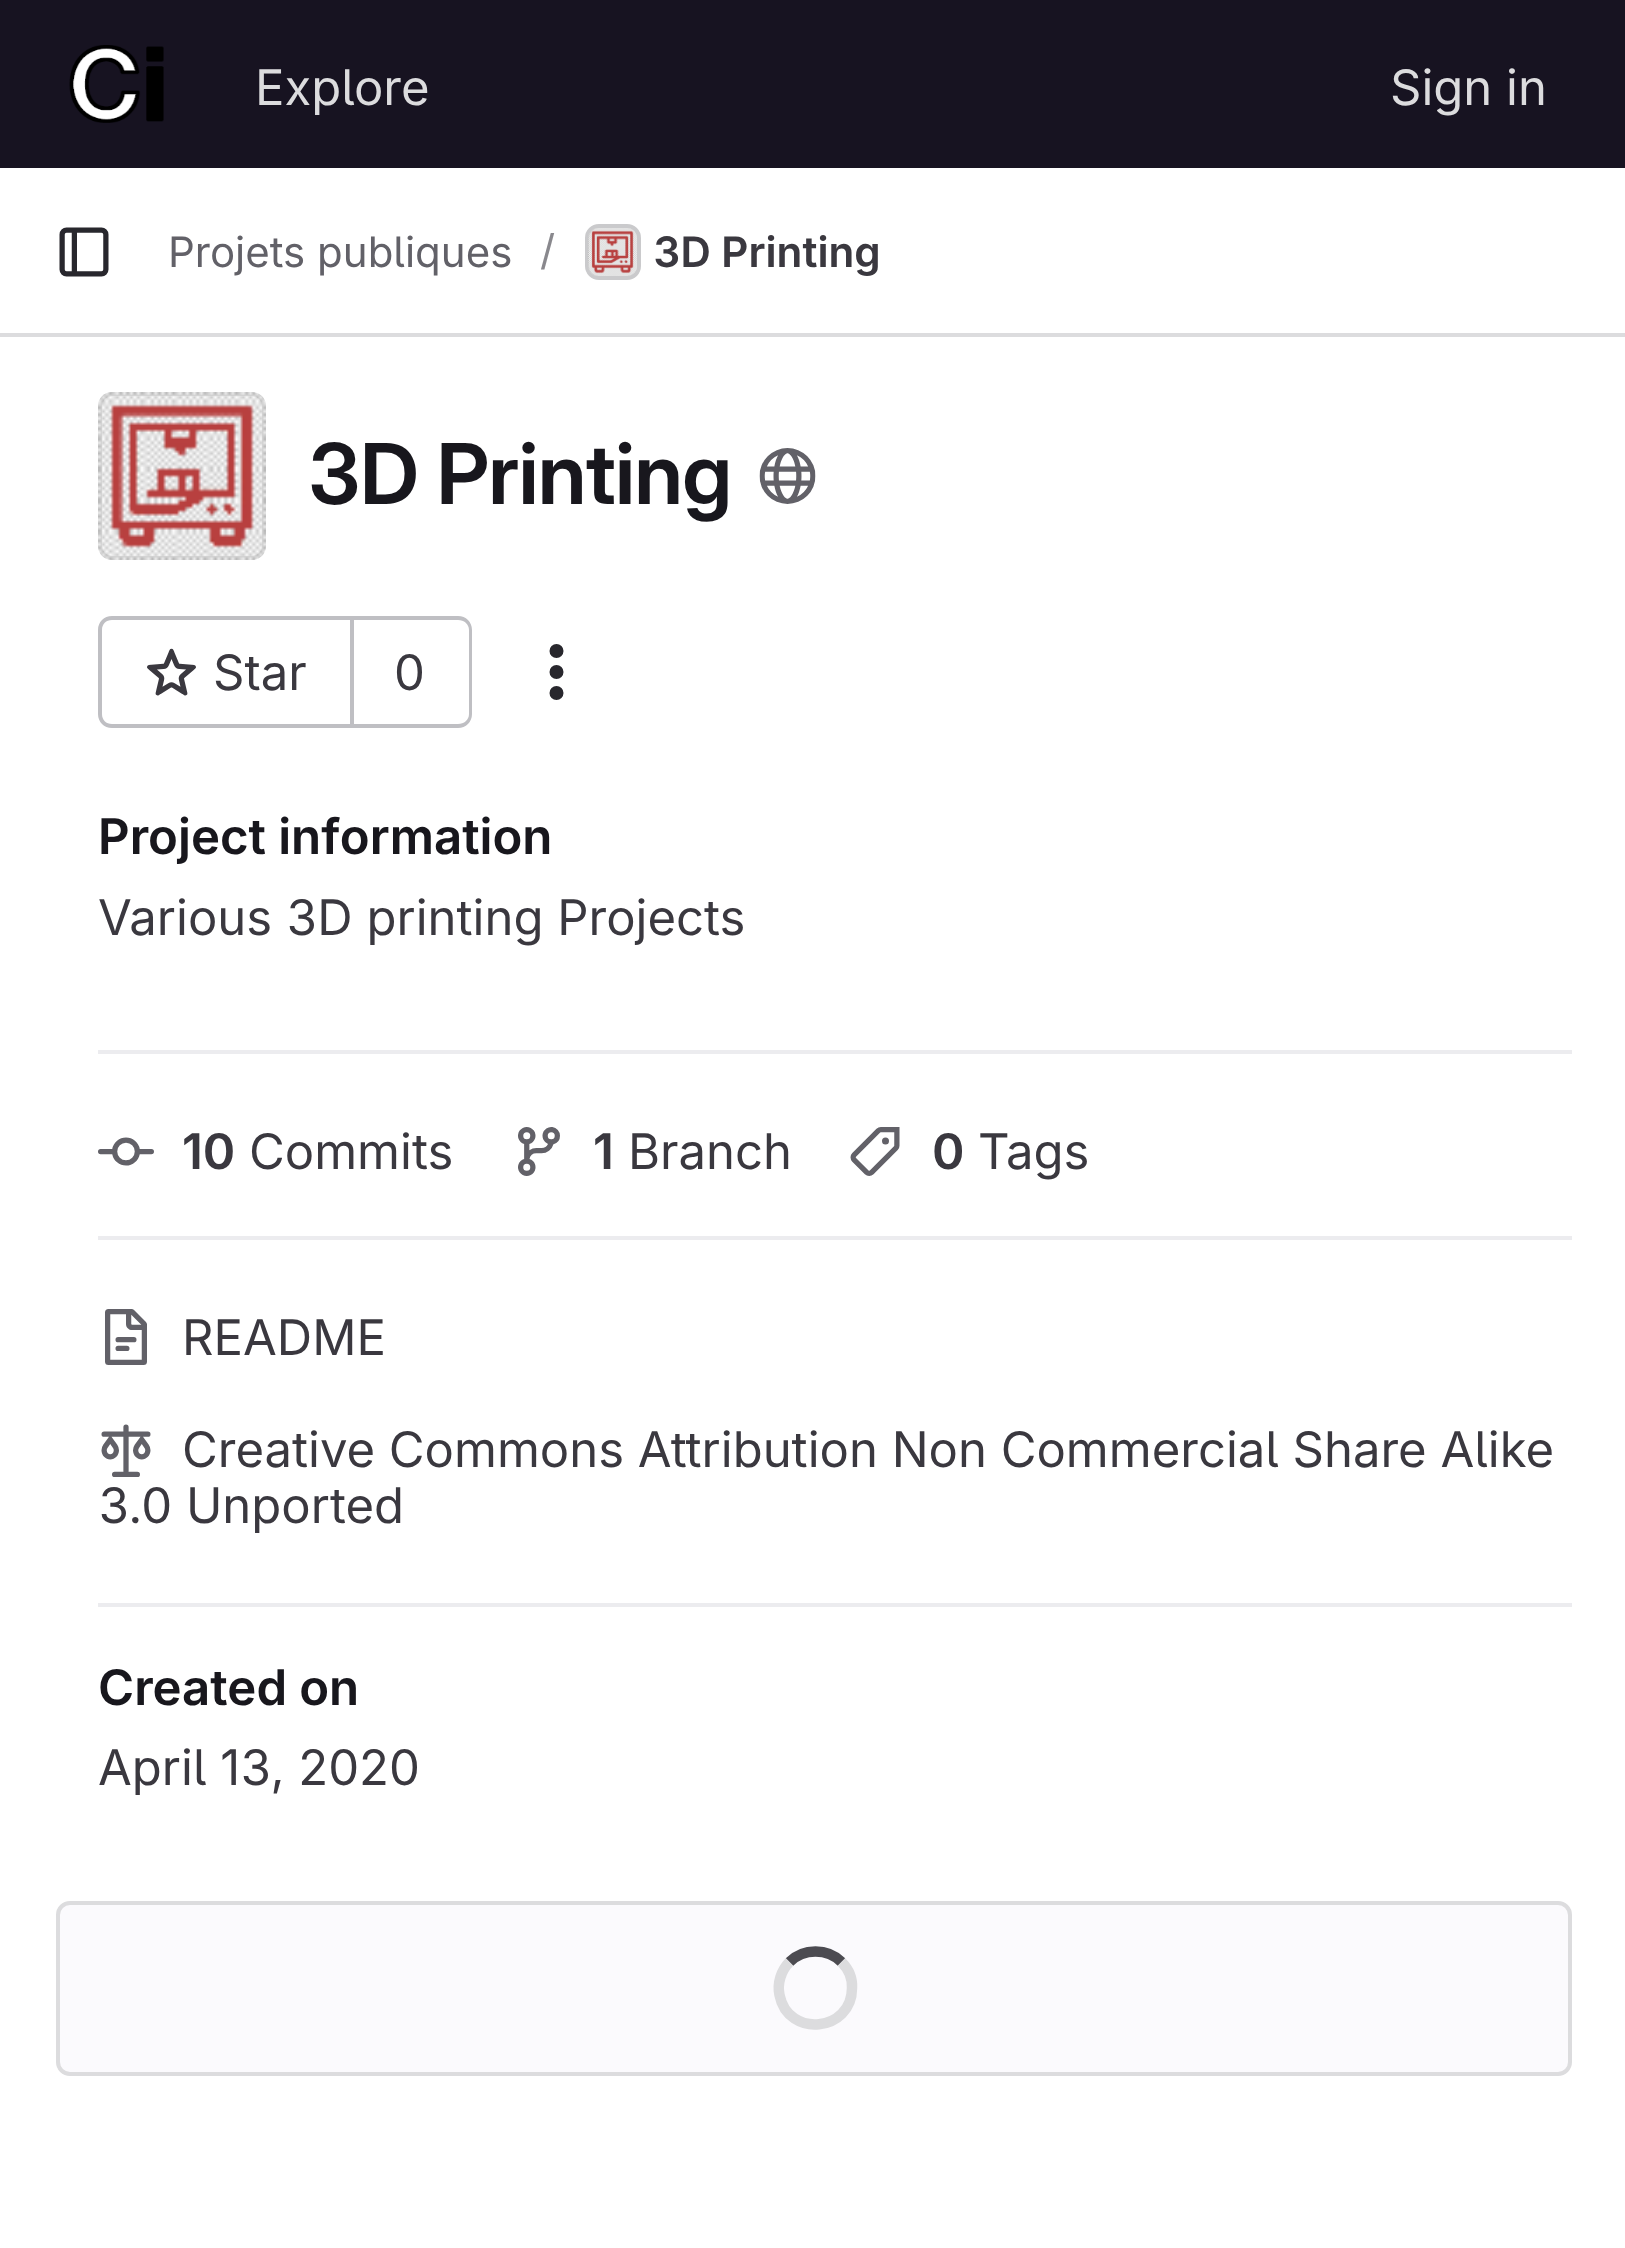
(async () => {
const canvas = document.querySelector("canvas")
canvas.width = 1625
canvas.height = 2248
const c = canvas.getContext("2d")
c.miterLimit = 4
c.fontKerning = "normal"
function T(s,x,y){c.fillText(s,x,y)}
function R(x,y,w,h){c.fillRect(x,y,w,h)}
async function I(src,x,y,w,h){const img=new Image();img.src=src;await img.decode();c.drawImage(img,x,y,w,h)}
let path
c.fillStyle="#fff"
R(0,0,1625,2248)
c.fillStyle="#171321"
R(0,0,1625,168)
await I("1.png",69,45,95,78)
c.font="49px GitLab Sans"
c.fillStyle="#dcdcde"
T("Explore",255,105)
T("Sign in",1390,105)
R(0,333,1625,4)
await I("2.png",59,227,50,50)
c.font="42px GitLab Sans"
c.fillStyle="#626168"
T("Projets publiques",168,267)
c.fillStyle="#89888d"
T("/",540,265)
c.beginPath()
c.roundRect(587,226,52,52,12)
c.strokeStyle="#dcdcde"
c.lineWidth=4
c.stroke()
await I("3.png",588,228,49,48)
c.beginPath()
c.roundRect(587,226,52,52,12)
c.strokeStyle="#05050614"
c.stroke()
c.font="600 42px 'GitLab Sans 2'"
c.fillStyle="#3a383f"
T("3D Printing",653,267)
await I("4.png",98,392,168,168)
c.beginPath()
c.roundRect(100,394,164,164,12)
c.stroke()
c.letterSpacing="-0.75px"
c.font="600 84px GitLab Sans"
c.fillStyle="#18171d"
T("3D Printing",308,504)
await I("5.png",759,448,57,56)
c.fillStyle="#bfbfc3"
path = new Path2D("M112 616h238v112h-238c-8 0-14-6-14-14v-84c0-8 6-14 14-14zm0 4h238v104h-238c-6 0-10-4-10-10v-84c0-6 4-10 10-10z")
c.fill(path,"evenodd")
await I("6.png",147,648,49,48)
c.letterSpacing="0px"
c.font="49px GitLab Sans"
c.fillStyle="#3a383f"
T("Star",213,690)
c.fillStyle="#bfbfc3"
path = new Path2D("M354 616h104c8 0 14 6 14 14v84c0 8-6 14-14 14h-104zm0 4h104c6 0 11 4 11 10v84c0 6-5 10-11 10h-104z")
c.fill(path,"evenodd")
R(350,616,4,112)
c.fillStyle="#3a383f"
T("0",394,690)
await I("7.png",549,644,15,56)
c.fillStyle="#ececef"
R(98,1050,1474,4)
c.font="600 49px 'GitLab Sans 2'"
c.fillStyle="#18171d"
T("Project information",98,854)
c.font="49px GitLab Sans"
c.fillStyle="#3a383f"
T("Various 3D printing Projects",98,935)
c.fillStyle="#ececef"
R(98,1236,1474,4)
await I("8.png",98,1137,56,29)
c.font="600 49px 'GitLab Sans 2'"
c.fillStyle="#3a383f"
T("10",182,1169)
c.font="49px GitLab Sans"
T("Commits",249,1169)
await I("9.png",518,1127,42,49)
c.font="600 49px 'GitLab Sans 2'"
T("1",593,1169)
c.font="49px GitLab Sans"
T("Branch",628,1169)
await I("10.png",850,1127,50,49)
c.font="600 49px 'GitLab Sans 2'"
T("0",932,1169)
c.font="49px GitLab Sans"
T("Tags",978,1169)
c.fillStyle="#ececef"
R(98,1603,1474,4)
await I("11.png",105,1309,42,56)
c.fillStyle="#3a383f"
T("README",182,1355)
await I("12.png",101,1424,50,53)
T("Creative Commons Attribution Non Commercial Share Alike",182,1467)
T("3.0 Unported",98,1523)
c.font="600 49px 'GitLab Sans 2'"
c.fillStyle="#18171d"
T("Created on",98,1705)
c.font="49px GitLab Sans"
c.fillStyle="#3a383f"
T("April 13, 2020",98,1785)
c.fillStyle="#fbfafd"
c.beginPath()
c.roundRect(58,1903,1512,171,12)
c.fill()
c.strokeStyle="#dcdcde"
c.stroke()
path = new Path2D("M789.5 1962c14-14 38-14 52 0")
c.strokeStyle="#4c4b51"
c.lineWidth=10.5
c.stroke(path)
path = new Path2D("M841.5 1962c7 7 11 16.5 10.5 26c0 44-64 50.5-72.5 7c-2.5-11.5 1.5-24.5 10-33")
c.strokeStyle="#dcdcde"
c.stroke(path)
})()
